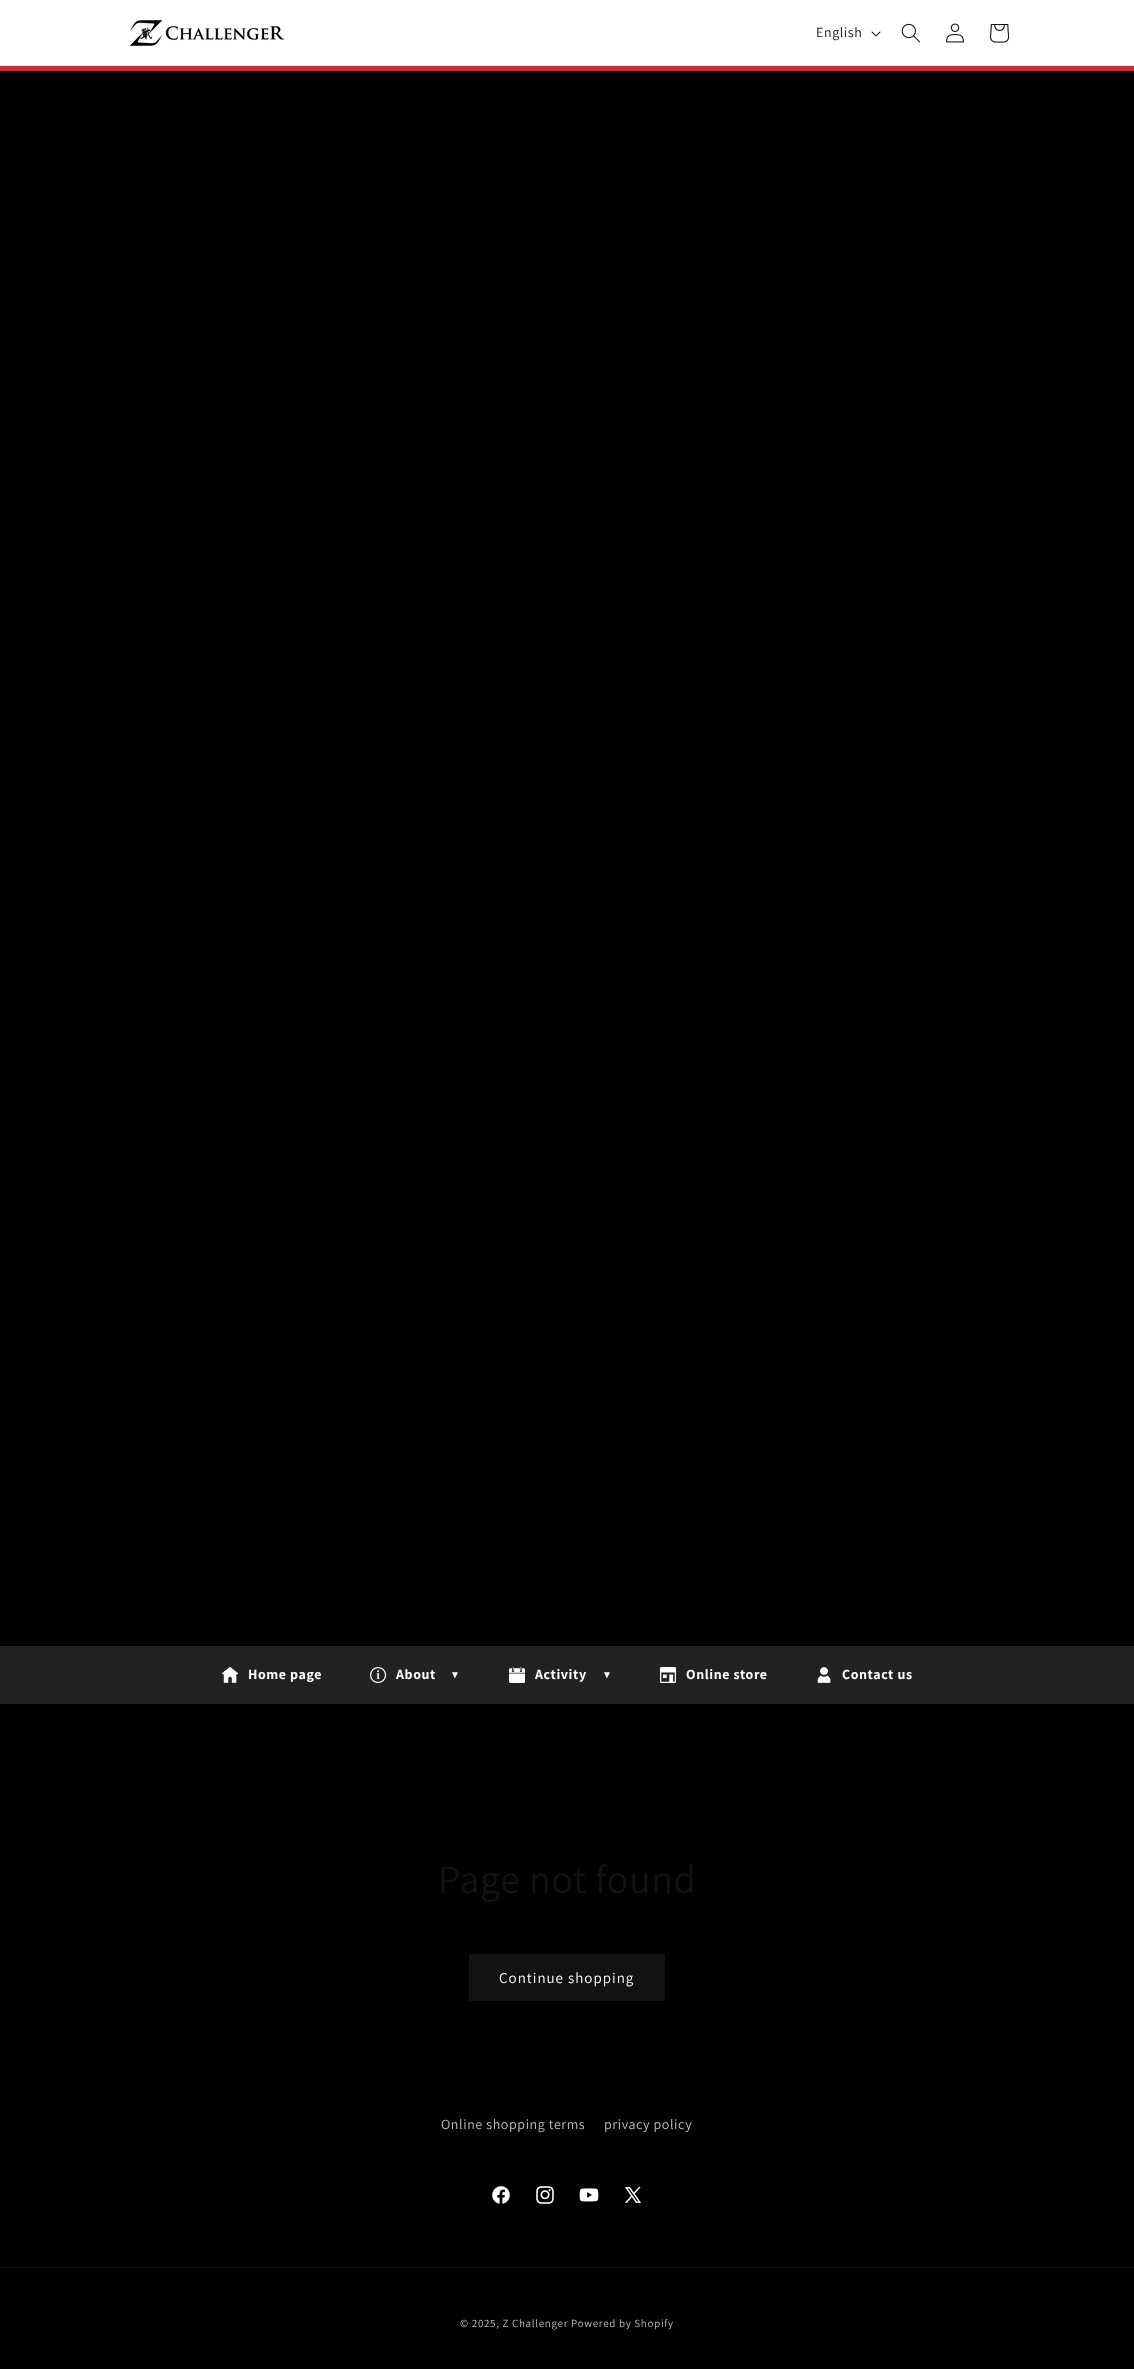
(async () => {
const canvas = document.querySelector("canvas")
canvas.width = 1134
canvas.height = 2369
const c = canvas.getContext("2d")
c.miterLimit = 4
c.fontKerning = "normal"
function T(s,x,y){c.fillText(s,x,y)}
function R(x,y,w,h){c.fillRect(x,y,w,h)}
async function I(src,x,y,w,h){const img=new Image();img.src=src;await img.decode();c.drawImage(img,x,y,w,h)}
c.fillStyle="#000"
R(0,0,1134,2369)
c.fillStyle="#fff"
R(0,0,1134,65)
c.fillStyle="#ececec"
R(0,65,1134,1)
await I("1.png",129,20,156,27)
c.letterSpacing="0.6px"
c.font="14px Assistant"
c.fillStyle="#121212"
T("English",816,37)
await I("2.png",871,31,10,6)
await I("3.png",901,23,19,20)
await I("4.png",946,23,18,20)
await I("5.png",990,24,20,19)
c.fillStyle="#d82434"
R(0,66,1134,5)
c.fillStyle="#222"
R(0,1646,1134,58)
await I("6.png",222,1667,16,16)
c.font="bold 14px Assistant"
c.fillStyle="#fff"
T("Home page",248,1679)
await I("7.png",370,1667,16,16)
T("About",396,1679)
c.font="bold 10px Liberation Sans"
T("▼",450,1678)
await I("8.png",509,1667,16,16)
c.font="bold 14px Assistant"
T("Activity",535,1679)
c.font="bold 10px Liberation Sans"
T("▼",602,1678)
await I("9.png",660,1667,16,16)
c.font="bold 14px Assistant"
T("Online store",686,1679)
await I("10.png",817,1667,14,16)
T("Contact us",842,1679)
c.font="40px Assistant"
c.fillStyle="#121212"
T("Page not found",438,1893)
R(469,1954,196,47)
c.letterSpacing="1px"
c.font="15px Assistant"
c.fillStyle="#fff"
T("Continue shopping",499,1983)
c.letterSpacing="0.6px"
c.font="14px Assistant"
c.fillStyle="#bfbfbf"
T("Online shopping terms",441,2129)
T("privacy policy",604,2129)
await I("11.png",492,2186,18,18)
await I("12.png",536,2186,18,18)
await I("13.png",579,2188,20,14)
await I("14.png",624,2187,17,16)
c.fillStyle="#141414"
R(0,2267,1134,1)
c.letterSpacing="0.7px"
c.font="11px Assistant"
c.fillStyle="#bfbfbf"
T("© 2025, Z Challenger Powered by Shopify",460,2327)
})()
